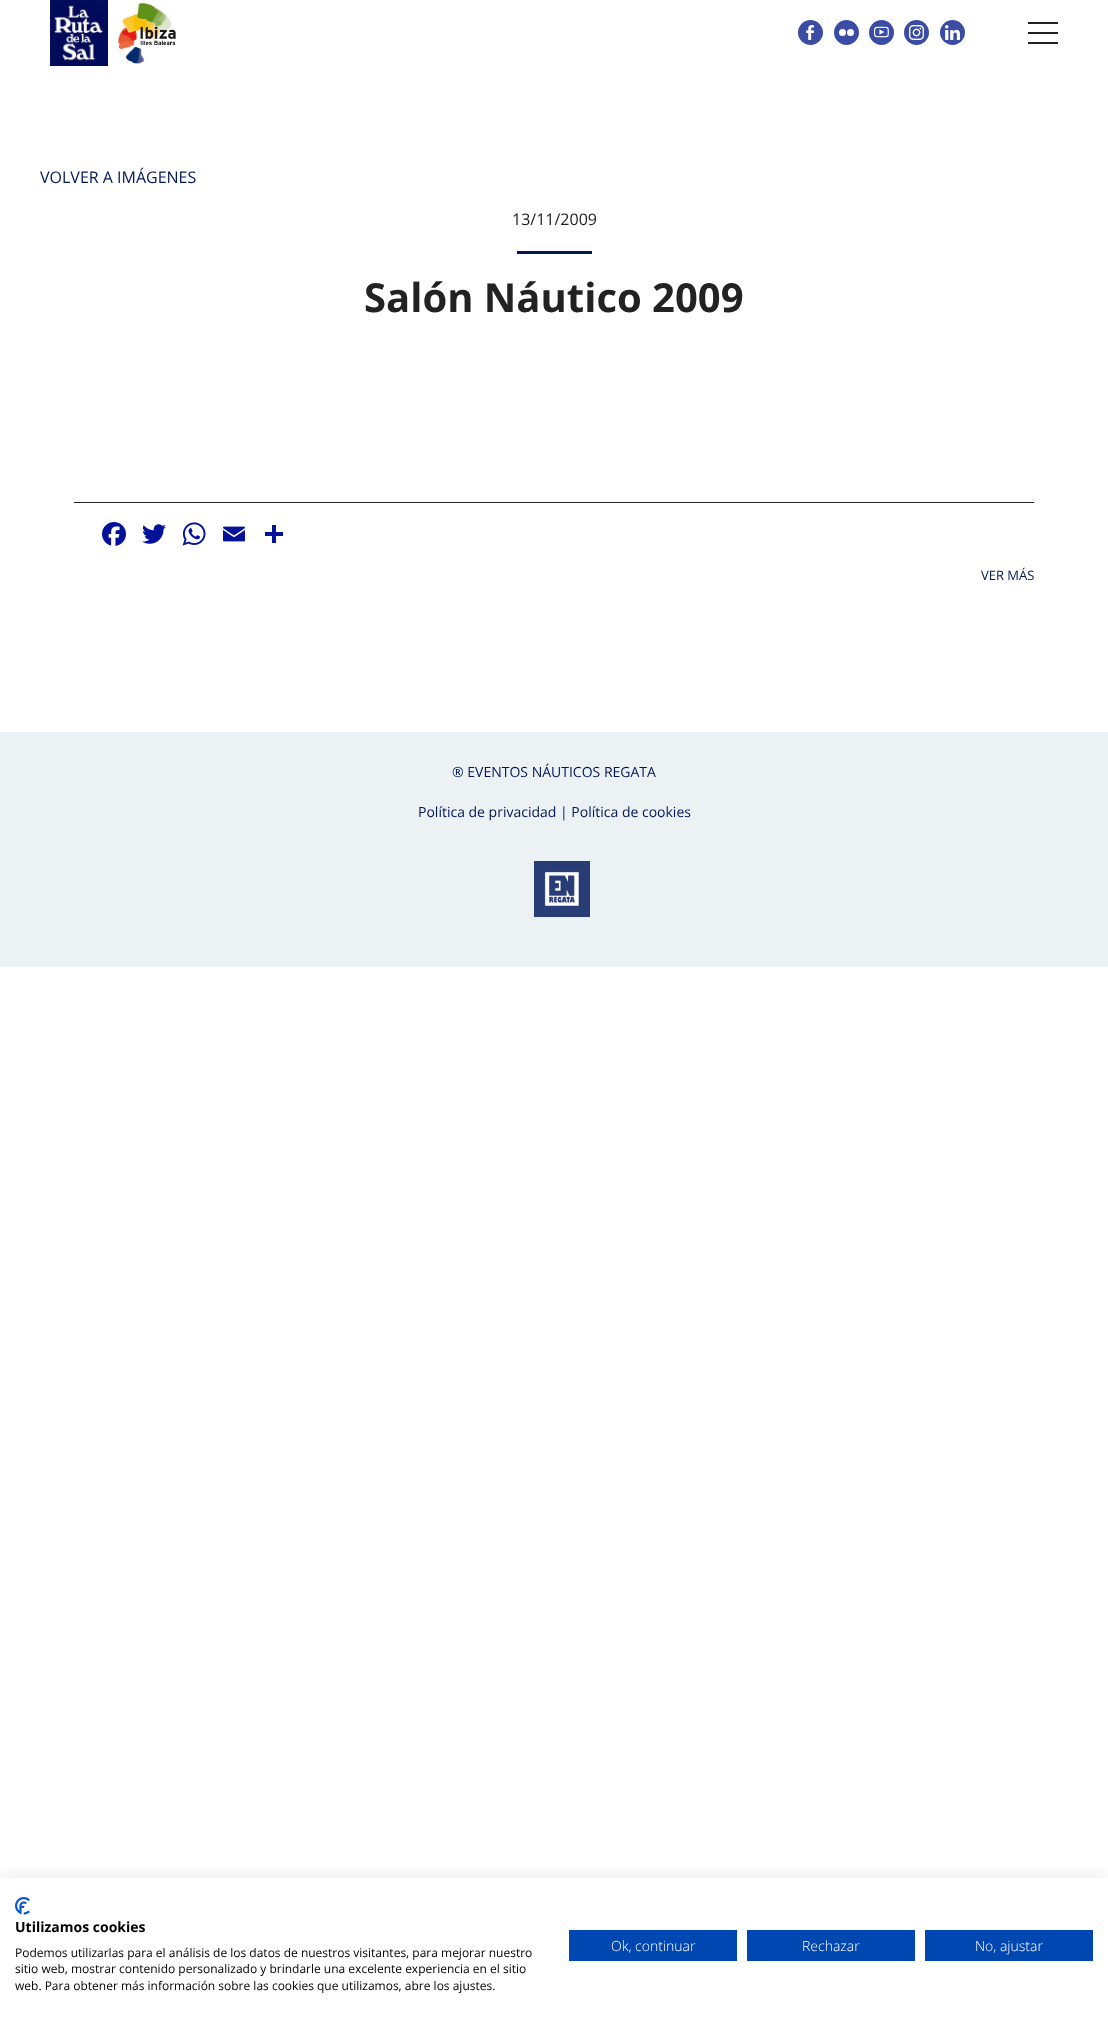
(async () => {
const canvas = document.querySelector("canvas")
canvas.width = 1108
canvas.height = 2022
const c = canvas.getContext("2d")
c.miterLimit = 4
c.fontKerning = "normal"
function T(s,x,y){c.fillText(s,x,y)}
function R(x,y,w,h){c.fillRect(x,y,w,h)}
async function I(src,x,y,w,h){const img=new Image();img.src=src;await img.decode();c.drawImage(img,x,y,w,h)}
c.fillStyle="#fff"
R(0,0,1108,2022)
await I("1.png",50,0,58,66)
await I("2.png",118,3,58,61)
c.fillStyle="#3b4ca5"
c.beginPath()
c.arc(810.5,32.5,12.5,0,7)
c.fill()
await I("3.png",806,25,9,15)
c.beginPath()
c.arc(846.5,32.5,12.5,0,7)
c.fill()
c.fillStyle="#fff"
c.beginPath()
c.arc(842.5,32.5,3.5,0,7)
c.fill()
c.beginPath()
c.arc(850.5,32.5,3.5,0,7)
c.fill()
c.fillStyle="#3b4ca5"
c.beginPath()
c.arc(881.5,32.5,12.5,0,7)
c.fill()
await I("4.png",874,26,15,12)
c.beginPath()
c.arc(916.5,32.5,12.5,0,7)
c.fill()
await I("5.png",909,25,15,15)
c.beginPath()
c.arc(952.5,32.5,12.5,0,7)
c.fill()
await I("6.png",945,25,15,15)
c.fillStyle="#222"
R(1028,22,30,2)
R(1028,32,30,2)
R(1028,42,30,2)
c.font="16px Open Sans"
c.fillStyle="#001758"
T("VOLVER A IMÁGENES",40,183)
c.fillStyle="#222"
T("13/11/2009",512,225)
c.fillStyle="#001758"
R(517,251,75,3)
c.font="bold 40px Open Sans"
c.fillStyle="#222"
T("Salón Náutico 2009",364,312)
R(74,502,960,1)
await I("7.png",102,522,24,24)
await I("8.png",142,524,24,20)
await I("9.png",182,522,24,24)
await I("10.png",223,526,22,16)
c.fillStyle="#031299"
R(272,525,4,18)
R(265,532,18,4)
c.font="13px Open Sans"
c.fillStyle="#001758"
T("VER MÁS",981,580)
c.fillStyle="#ecf1f3"
R(0,732,1108,235)
c.font="14px Open Sans"
c.fillStyle="#001758"
T("® EVENTOS NÁUTICOS REGATA",452,777)
T("Política de privacidad | Política de cookies",418,817)
await I("11.png",534,861,56,56)
c.save()
c.beginPath()
c.rect(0,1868,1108,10)
c.clip()
c.fillStyle="#0000001a"
c.filter="blur(12px)"
c.beginPath()
c.rect(0,1878,1108,144)
c.fill()
c.filter="none"
c.restore()
await I("12.png",15,1897,15,18)
c.font="bold 14px Open Sans"
c.fillStyle="#000"
T("Utilizamos cookies",15,1932)
c.font="12px Open Sans"
T("Podemos utilizarlas para el análisis de los datos de nuestros visitantes, para mejorar nuestro",15,1957)
T("sitio web, mostrar contenido personalizado y brindarle una excelente experiencia en el sitio",15,1973)
T("web. Para obtener más información sobre las cookies que utilizamos, abre los ajustes.",15,1990)
c.fillStyle="#0047b2"
R(569,1930,168,31)
c.font="300 14px Open Sans"
c.fillStyle="#fff"
T("Ok, continuar",611,1951)
c.fillStyle="#0047b2"
R(747,1930,168,31)
c.fillStyle="#fff"
T("Rechazar",802,1951)
c.fillStyle="#0047b2"
R(925,1930,168,31)
c.fillStyle="#fff"
T("No, ajustar",975,1951)
})()
